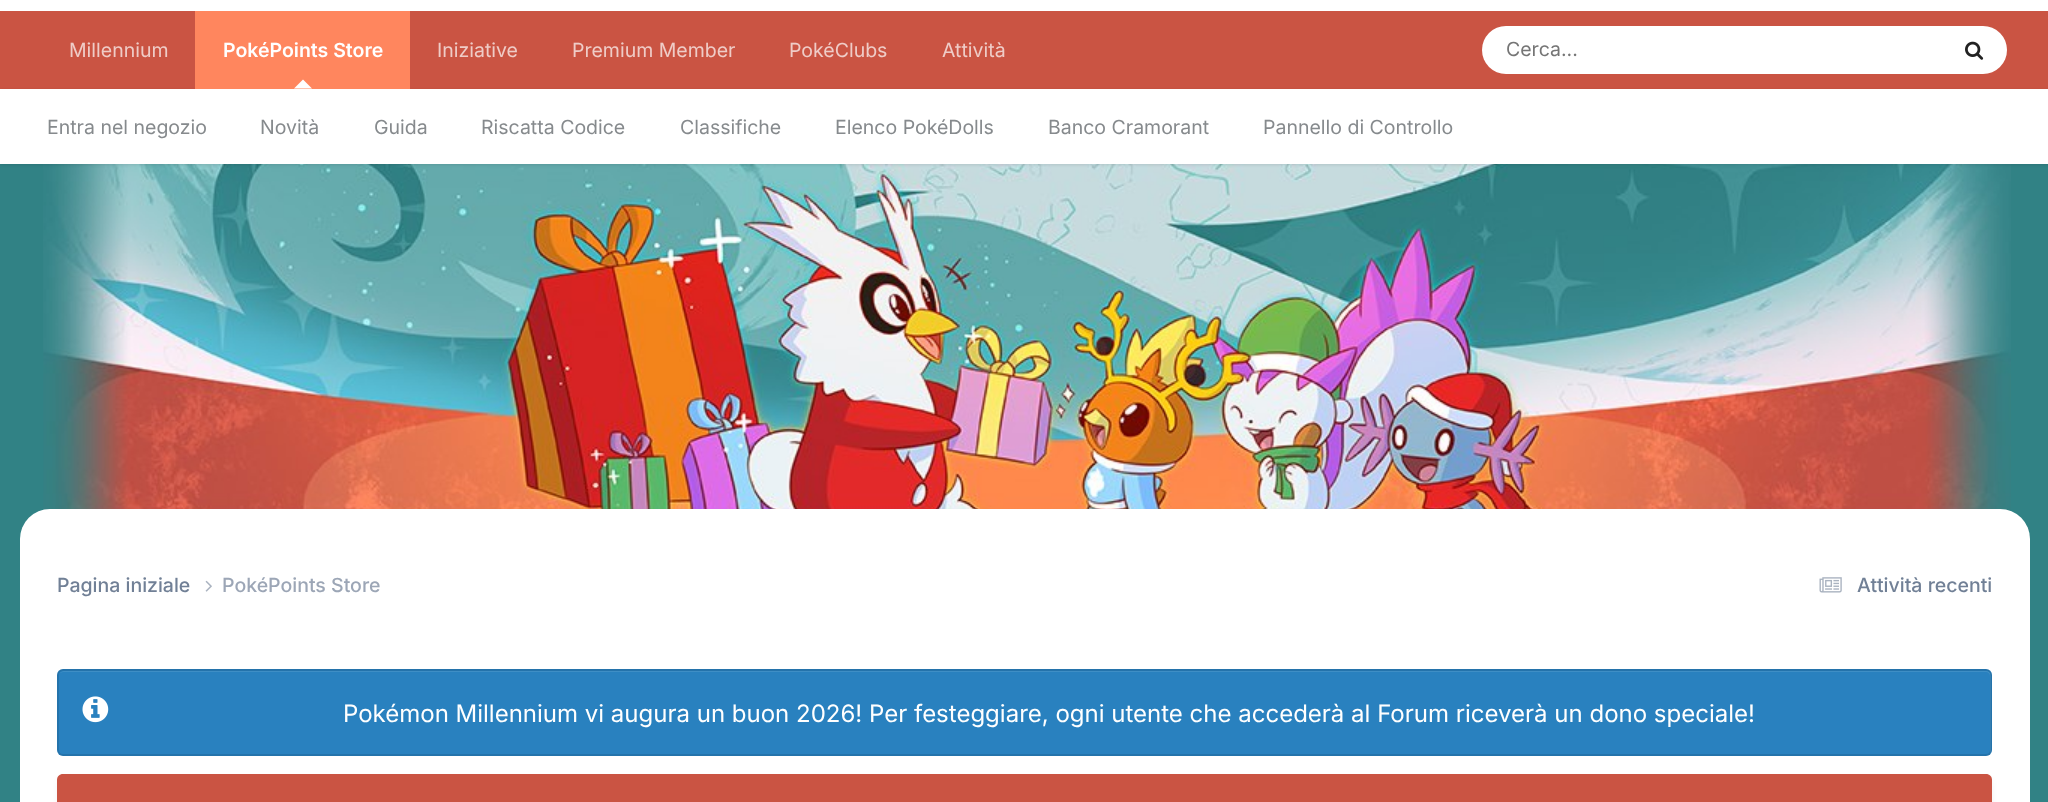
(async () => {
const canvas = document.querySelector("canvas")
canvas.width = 2048
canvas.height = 802
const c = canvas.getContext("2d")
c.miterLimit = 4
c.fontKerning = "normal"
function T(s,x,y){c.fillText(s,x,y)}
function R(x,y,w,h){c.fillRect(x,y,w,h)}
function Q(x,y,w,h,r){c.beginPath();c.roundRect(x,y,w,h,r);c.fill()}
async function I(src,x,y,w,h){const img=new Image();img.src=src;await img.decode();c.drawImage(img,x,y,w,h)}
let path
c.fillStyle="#318285"
R(0,0,2048,802)
await I("1.png",43,164,1968,348)
c.fillStyle="#fff"
R(0,0,2048,11)
c.fillStyle="#ca5443"
R(0,11,2048,78)
c.fillStyle="#0000001a"
c.filter="blur(1.5px)"
c.beginPath()
c.rect(0,90,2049,75)
c.fill()
c.filter="none"
c.fillStyle="#ff865e"
R(195,11,215,78)
c.font="600 19.5px Inter"
c.fillStyle="#fff"
T("PokéPoints Store",223,57)
path = new Path2D("M312 88.5h-18l9-9z")
c.fill(path)
R(0,89,2048,75)
c.font="19.5px Inter"
c.fillStyle="#868a8d"
T("Entra nel negozio",47,134)
T("Novità",260,134)
T("Guida",374,134)
T("Riscatta Codice",481,134)
T("Classifiche",680,134)
T("Elenco PokéDolls",835,134)
T("Banco Cramorant",1048,134)
T("Pannello di Controllo",1263,134)
c.fillStyle="#efccc7"
T("Millennium",69,57)
T("Iniziative",437,57)
T("Premium Member",572,57)
T("PokéClubs",789,57)
T("Attività",942,57)
c.fillStyle="#fff"
Q(1482,26,525,48,24)
c.fillStyle="#757575"
T("Cerca...",1506,56)
await I("2.png",1965,41,19,19)
c.fillStyle="#fff"
Q(20,509,2010,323,30)
c.font="500 19.5px Inter"
c.fillStyle="#718096"
T("Pagina iniziale",57,592)
await I("3.png",205,580,7,12)
c.fillStyle="#9ca6b6"
T("PokéPoints Store",222,592)
await I("4.png",1819,577,23,16)
c.fillStyle="#718096"
T("Attività recenti",1857,592)
c.fillStyle="#2981bf"
Q(57,669,1935,87,6)
c.fillStyle="#3e8ec5"
path = new Path2D("M63 672h1923c2 0 4 2 4 4v77c1-1 1-2 1-3v-74c0-3-2-5-5-5h-1922c-2 0-3 1-4 2z")
c.fill(path)
c.beginPath()
c.roundRect(58,670,1933,85,5)
c.strokeStyle="#0000001a"
c.lineWidth=2
c.stroke()
await I("5.png",82,696,27,27)
c.font="24px Inter"
c.fillStyle="#fff"
T("Pokémon Millennium vi augura un buon 2026! Per festeggiare, ogni utente che accederà al Forum riceverà un dono speciale!",343,722)
c.fillStyle="#2d37481a"
c.filter="blur(3px)"
c.beginPath()
c.roundRect(59,779,1932,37,5)
c.fill()
c.filter="none"
c.fillStyle="#ca5443"
path = new Path2D("M63 774h1923c3.5 0 6 2.5 6 6v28h-1935v-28c0-3.5 2.5-6 6-6z")
c.fill(path)
})()
